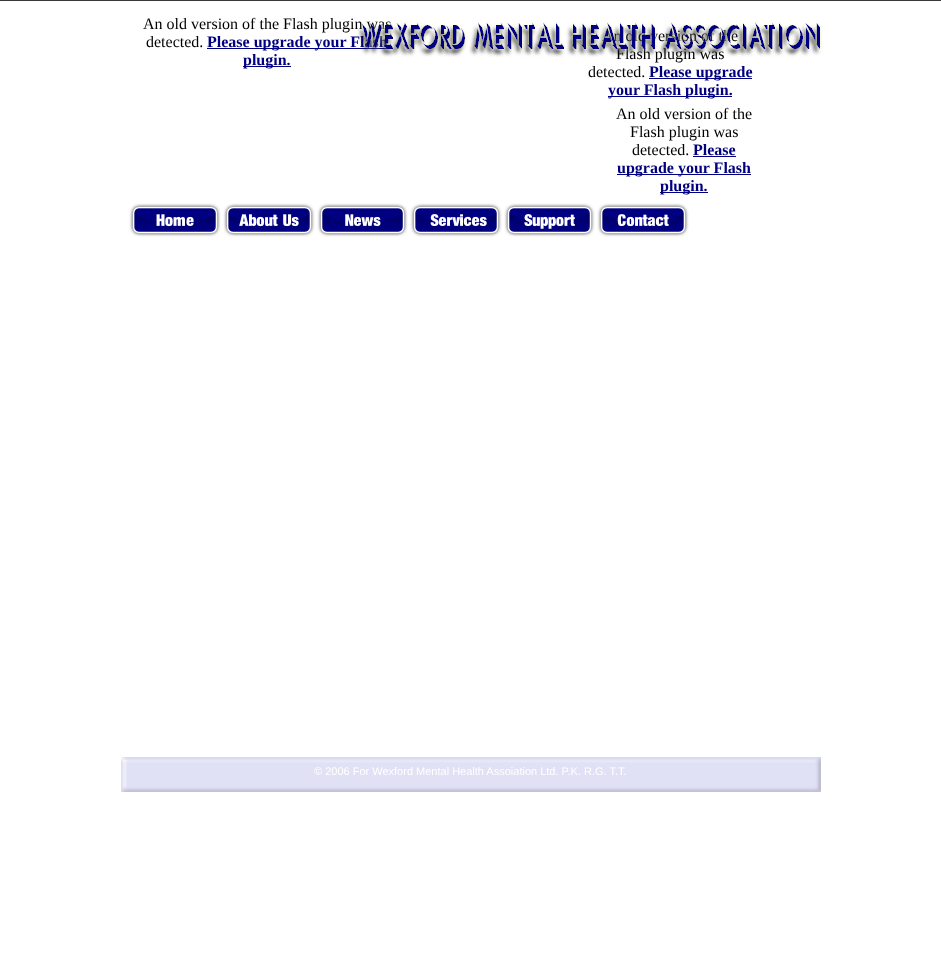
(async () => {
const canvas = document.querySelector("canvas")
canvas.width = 941
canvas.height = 968
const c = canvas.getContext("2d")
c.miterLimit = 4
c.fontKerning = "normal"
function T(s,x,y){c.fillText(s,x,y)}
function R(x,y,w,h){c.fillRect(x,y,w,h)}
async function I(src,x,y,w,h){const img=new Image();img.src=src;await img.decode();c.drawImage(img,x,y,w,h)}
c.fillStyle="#fff"
R(0,0,941,968)
c.fillStyle="#393939"
R(0,0,941,1)
c.font="16px Liberation Serif"
c.fillStyle="#000"
T("An old version of the Flash plugin was",143,29)
T("detected.",146,47)
c.fillStyle="#000080"
R(207,48,181,1)
c.font="bold 16px Liberation Serif"
T("Please upgrade your Flash",207,47)
R(243,66,48,1)
T("plugin.",243,65)
c.font="16px Liberation Serif"
c.fillStyle="#000"
T("An old version of the",602,41)
T("Flash plugin was",616,59)
await I("1.png",357,22,466,35)
T("detected.",588,77)
c.fillStyle="#000080"
R(649,78,103,1)
c.font="bold 16px Liberation Serif"
T("Please upgrade",649,77)
R(608,96,124,1)
T("your Flash plugin.",608,95)
c.font="16px Liberation Serif"
c.fillStyle="#000"
T("An old version of the",616,119)
T("Flash plugin was",630,137)
T("detected.",632,155)
c.font="bold 16px Liberation Serif"
c.fillStyle="#000080"
T("Please",693,155)
R(693,156,43,1)
R(617,174,134,1)
T("upgrade your Flash",617,173)
R(660,192,48,1)
T("plugin.",660,191)
await I("2.png",129,203,92,34)
await I("3.png",223,203,92,34)
await I("4.png",317,203,91,34)
await I("5.png",410,203,92,34)
await I("6.png",504,203,91,34)
await I("7.png",597,203,92,34)
await I("8.png",121,757,700,35)
c.font="11px Liberation Sans"
c.fillStyle="#fff"
T("© 2006 For Wexford Mental Health Assoiation Ltd. P.K. R.G. T.T.",314,775)
})()
